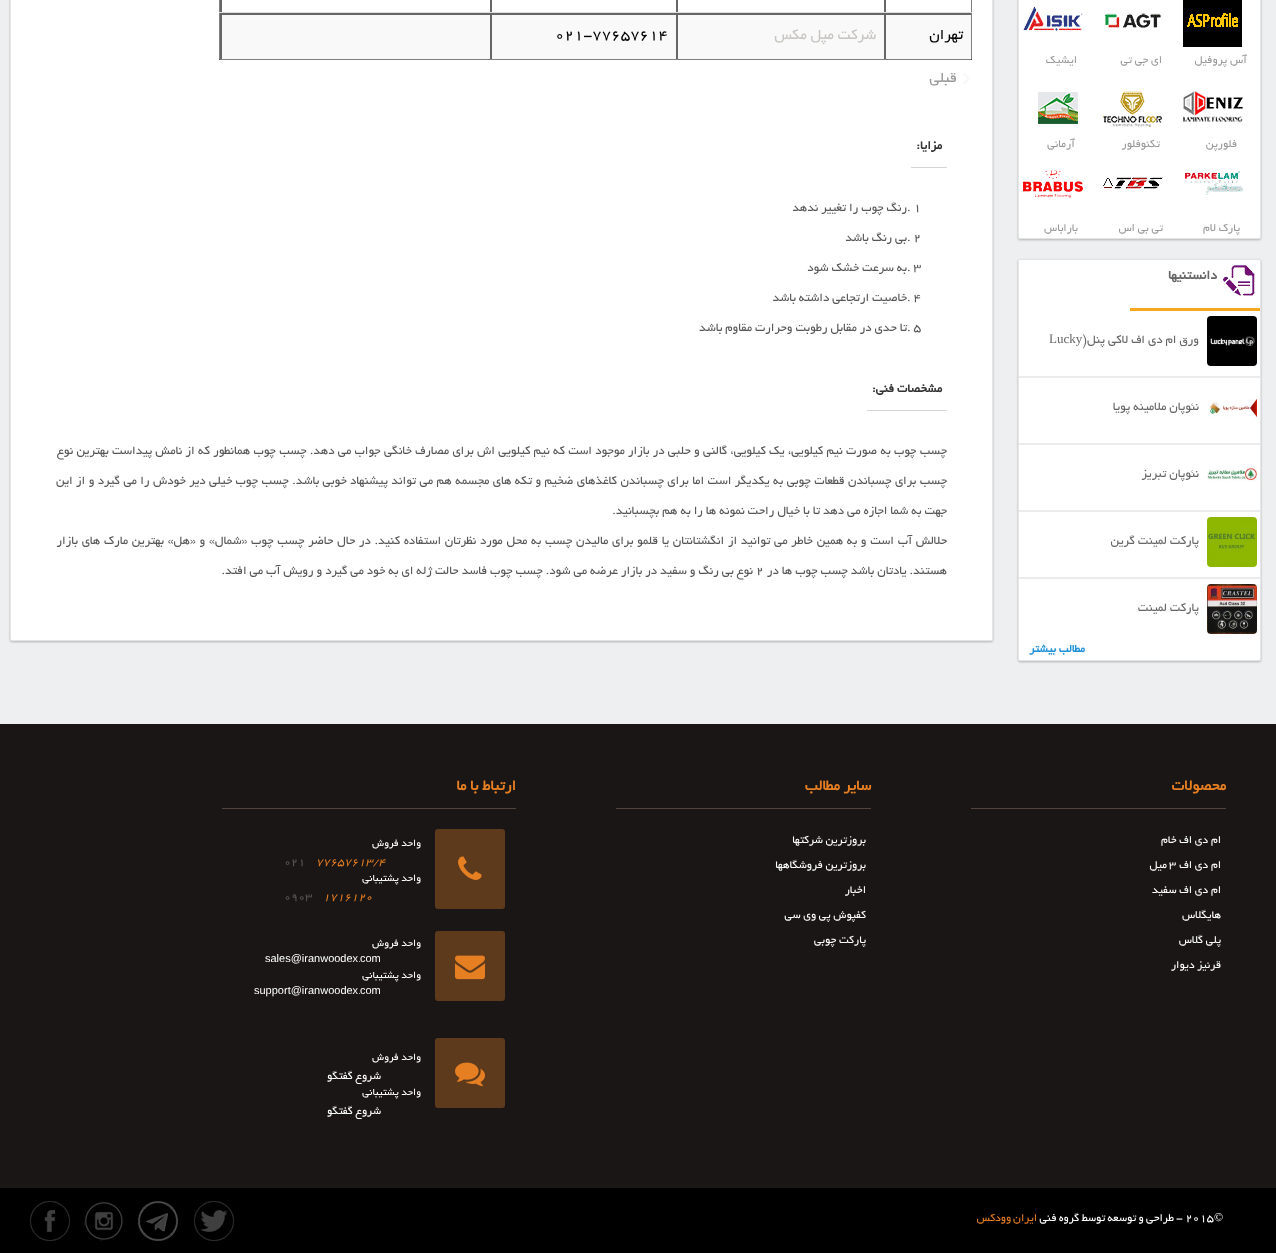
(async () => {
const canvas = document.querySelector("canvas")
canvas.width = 1276
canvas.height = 1253
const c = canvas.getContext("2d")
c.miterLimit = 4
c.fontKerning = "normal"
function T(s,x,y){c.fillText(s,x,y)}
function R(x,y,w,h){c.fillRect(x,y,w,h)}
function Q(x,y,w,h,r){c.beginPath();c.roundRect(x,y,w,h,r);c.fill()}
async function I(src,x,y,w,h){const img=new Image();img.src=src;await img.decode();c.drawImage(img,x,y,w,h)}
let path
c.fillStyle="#edeff0"
R(0,0,1276,1253)
c.fillStyle="#00000040"
c.filter="blur(1px)"
c.beginPath()
c.roundRect(1018,-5,243,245,2)
c.fill()
c.filter="none"
c.fillStyle="#fff"
Q(1018,-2,243,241,2)
c.beginPath()
c.roundRect(1018.5,-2.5,242,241,1.5)
c.strokeStyle="#0000001a"
c.stroke()
await I("1.png",1183,0,59,47)
c.direction="rtl"
c.font="12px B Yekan"
c.fillStyle="#999"
T("آس پروفیل",1247,63)
await I("2.png",1105,13,56,15)
T("ای جی تی",1162,63)
await I("3.png",1023,6,60,25)
T("ایشیک",1077,63)
await I("4.png",1183,91,60,31)
T("فلورپن",1237,147)
await I("5.png",1103,91,59,36)
T("تکنوفلور",1160,147)
await I("6.png",1038,92,40,32)
T("آرمانی",1075,147)
await I("7.png",1185,171,58,24)
T("پارک لام",1240,231)
await I("8.png",1103,177,60,12)
T("تی بی اس",1163,231)
await I("9.png",1023,169,60,29)
T("باراباس",1078,231)
c.fillStyle="#00000040"
c.filter="blur(1px)"
c.beginPath()
c.roundRect(1018,260,243,402,2)
c.fill()
c.filter="none"
c.fillStyle="#fff"
Q(1018,259,243,402,2)
c.beginPath()
c.roundRect(1018.5,259.5,242,401,1.5)
c.stroke()
await I("10.png",1223,265,32,31)
c.fillStyle="#f7a71e"
R(1130,308,130,3)
c.font="bold 14px B Yekan"
c.fillStyle="#666"
T("دانستنیها",1217,279)
c.fillStyle="#ebebeb"
R(1019,376,241,2)
await I("11.png",1207,316,50,50)
c.direction="ltr"
c.font="13px Liberation Serif"
c.fillStyle="#666"
T("Lucky",1049,343)
c.direction="rtl"
c.font="13px B Yekan"
T("ورق ام دی اف لاکی پنل(",1199,343)
c.fillStyle="#ebebeb"
R(1019,443,241,2)
await I("12.png",1208,399,49,19)
c.fillStyle="#666"
T("نئوپان ملامینه پویا",1199,410)
c.fillStyle="#ebebeb"
R(1019,510,241,2)
await I("13.png",1207,466,50,16)
c.fillStyle="#666"
T("نئوپان تبریز",1199,477)
c.fillStyle="#ebebeb"
R(1019,577,241,2)
await I("14.png",1207,517,50,50)
c.fillStyle="#666"
T("پارکت لمینت گرین",1199,544)
await I("15.png",1207,584,50,50)
T("پارکت لمینت",1199,611)
c.font="bold 12px B Yekan"
c.fillStyle="#2192d9"
T("مطالب بیشتر",1085,652)
c.fillStyle="#00000040"
c.filter="blur(1px)"
c.beginPath()
c.roundRect(10,-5,983,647,2)
c.fill()
c.filter="none"
c.fillStyle="#fff"
Q(10,-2,983,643,2)
c.fillStyle="#808080"
R(219,0,1,60)
R(971,0,1,13)
R(219,59,753,1)
c.fillStyle="#404040"
R(219,59,1,1)
c.fillStyle="#808080"
R(971,12,1,48)
c.fillStyle="#404040"
R(971,59,1,1)
c.beginPath()
c.roundRect(10.5,-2.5,982,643,1.5)
c.stroke()
c.save()
c.beginPath()
c.rect(884,0,87,12)
c.clip()
c.fillStyle="#666"
path = new Path2D("M785-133h285v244h-285zm101 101h87v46h-87z")
c.fill(path,"evenodd")
c.restore()
c.save()
c.beginPath()
c.rect(676,0,208,12)
c.clip()
c.fillStyle="#666"
path = new Path2D("M577-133h406v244h-406zm101 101h208v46h-208z")
c.fill(path,"evenodd")
c.restore()
c.save()
c.beginPath()
c.rect(490,0,186,12)
c.clip()
c.fillStyle="#666"
path = new Path2D("M391-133h384v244h-384zm101 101h186v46h-186z")
c.fill(path,"evenodd")
c.restore()
c.save()
c.beginPath()
c.rect(220,0,270,12)
c.clip()
c.fillStyle="#666"
path = new Path2D("M121-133h468v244h-468zm101 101h270v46h-270z")
c.fill(path,"evenodd")
c.restore()
c.fillStyle="#f9f9f9"
R(222,15,268,44)
c.save()
c.beginPath()
c.rect(220,13,270,46)
c.clip()
c.fillStyle="#666"
path = new Path2D("M121-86h468v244h-468zm101 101h270v46h-270z")
c.fill(path,"evenodd")
c.restore()
c.fillStyle="#ddd"
R(219,12,753,1)
c.fillStyle="#f9f9f9"
R(886,15,85,44)
c.save()
c.beginPath()
c.rect(884,13,87,46)
c.clip()
c.fillStyle="#666"
path = new Path2D("M785-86h285v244h-285zm101 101h87v46h-87z")
c.fill(path,"evenodd")
c.restore()
c.font="16px B Yekan"
c.fillStyle="#000"
T("تهران",963,39)
c.fillStyle="#f9f9f9"
R(678,15,206,44)
c.save()
c.beginPath()
c.rect(676,13,208,46)
c.clip()
c.fillStyle="#666"
path = new Path2D("M577-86h406v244h-406zm101 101h208v46h-208z")
c.fill(path,"evenodd")
c.restore()
c.fillStyle="#c7c5c1"
T("شرکت مپل مکس",876,39)
c.fillStyle="#f9f9f9"
R(492,15,184,44)
c.save()
c.beginPath()
c.rect(490,13,186,46)
c.clip()
c.fillStyle="#666"
path = new Path2D("M391-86h384v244h-384zm101 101h186v46h-186z")
c.fill(path,"evenodd")
c.restore()
c.direction="ltr"
c.fillStyle="#000"
T("021-77657614",555,39)
await I("16.png",963,73,7,11)
c.direction="rtl"
c.fillStyle="#999"
T("قبلی",957,82)
c.fillStyle="#d8d4d4"
R(911,167,36,1)
c.font="bold 13px B Yekan"
c.fillStyle="#333"
T("مزایا:",942,149)
c.direction="ltr"
c.font="13px B Yekan"
c.fillStyle="#575757"
T(". 1",907,211)
c.direction="rtl"
T("رنگ چوب را تغییر ندهد",907,211)
c.direction="ltr"
T(". 2",907,241)
c.direction="rtl"
T("بی رنگ باشد",907,241)
c.direction="ltr"
T(". 3",907,271)
c.direction="rtl"
T("به سرعت خشک شود",907,271)
c.direction="ltr"
T(". 4",907,301)
c.direction="rtl"
T("خاصیت ارتجاعی داشته باشد",907,301)
c.direction="ltr"
T(". 5",907,331)
c.direction="rtl"
T("تا حدی در مقابل رطوبت وحرارت مقاوم باشد",907,331)
c.fillStyle="#d8d4d4"
R(867,410,80,1)
c.font="bold 13px B Yekan"
c.fillStyle="#333"
T("مشخصات فنی:",942,392)
c.wordSpacing="0.3px"
c.font="13px B Yekan"
c.fillStyle="#575757"
T("چسب چوب به صورت نیم کیلویی، یک کیلویی، گالنی و حلبی در بازار موجود است که نیم کیلویی اش برای مصارف خانگی جواب می دهد. چسب چوب همانطور که از نامش پیداست بهترین نوع",947,454)
c.wordSpacing="0.45px"
T("چسب برای چسباندن قطعات چوبی به یکدیگر است اما برای چسباندن کاغذهای ضخیم و تکه های مجسمه هم می تواند پیشنهاد خوبی باشد. چسب چوب خیلی دیر خودش را می گیرد و از این",947,484)
c.wordSpacing="0px"
T("جهت به شما اجازه می دهد تا با خیال راحت نمونه ها را به هم بچسبانید.",947,514)
c.wordSpacing="0.75px"
T("حلالش آب است و به همین خاطر می توانید از انگشتانتان یا قلمو برای مالیدن چسب به محل مورد نظرتان استفاده کنید. در حال حاضر چسب چوب «شمال» و «هل» بهترین مارک های بازار",947,544)
c.wordSpacing="0px"
T("هستند. یادتان باشد چسب چوب ها در",947,574)
c.direction="ltr"
T("۲",756,574)
c.direction="rtl"
T("نوع بی رنگ و سفید در بازار عرضه می شود. چسب چوب فاسد حالت ژله ای به خود می گیرد و رویش آب می افتد.",753,574)
c.fillStyle="#1a1616"
R(0,724,1276,464)
c.fillStyle="#52433c"
R(971,808,255,1)
c.font="bold 16px B Yekan"
c.fillStyle="#e67e22"
T("محصولات",1226,790)
c.font="12px B Yekan"
c.fillStyle="#fff"
T("ام دی اف خام",1221,843)
T("ام دی اف",1221,868)
c.direction="ltr"
T("۳",1169,868)
c.direction="rtl"
T("میل",1167,868)
T("ام دی اف سفید",1221,893)
T("هایگلاس",1221,918)
T("پلی گلاس",1221,943)
T("قرنیز دیوار",1221,968)
c.fillStyle="#52433c"
R(616,808,255,1)
c.font="bold 16px B Yekan"
c.fillStyle="#e67e22"
T("سایر مطالب",871,790)
c.font="12px B Yekan"
c.fillStyle="#fff"
T("بروزترین شرکتها",866,843)
T("بروزترین فروشگاهها",866,868)
T("اخبار",866,893)
T("کفپوش پی وی سی",866,918)
T("پارکت چوبی",866,943)
c.fillStyle="#52433c"
R(222,808,294,1)
c.font="bold 16px B Yekan"
c.fillStyle="#e67e22"
T("ارتباط با ما",516,790)
c.fillStyle="#5e3a1d"
Q(435,829,70,80,3)
await I("17.png",458,856,24,24)
c.font="11px B Yekan"
c.fillStyle="#fff"
T("واحد فروش",421,846)
c.direction="ltr"
c.font="italic 12px B Yekan"
c.fillStyle="#e67e22"
T("77657613/4",316,865)
c.font="12px B Yekan"
c.fillStyle="#575757"
T("021",284,865)
c.direction="rtl"
c.font="11px B Yekan"
c.fillStyle="#fff"
T("واحد پشتیبانی",421,881)
c.direction="ltr"
c.font="italic 12px B Yekan"
c.fillStyle="#e67e22"
T("1716120",323,900)
c.font="12px B Yekan"
c.fillStyle="#575757"
T("0903",284,900)
c.fillStyle="#5e3a1d"
Q(435,931,70,70,3)
await I("18.png",455,955,30,25)
c.direction="rtl"
c.font="11px B Yekan"
c.fillStyle="#fff"
T("واحد فروش",421,946)
c.direction="ltr"
c.font="11px Liberation Sans"
T("com",360,962)
c.font="11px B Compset"
T(".",358,962)
c.font="11px Liberation Sans"
T("sales@iranwoodex",265,962)
c.direction="rtl"
c.font="11px B Yekan"
T("واحد پشتیبانی",421,978)
c.direction="ltr"
c.font="11px Liberation Sans"
T("com",360,994)
c.font="11px B Compset"
T(".",358,994)
c.font="11px Liberation Sans"
T("support@iranwoodex",254,994)
c.fillStyle="#5e3a1d"
Q(435,1038,70,70,3)
await I("19.png",455,1062,30,25)
c.direction="rtl"
c.font="11px B Yekan"
c.fillStyle="#fff"
T("واحد فروش",421,1060)
c.font="12px B Yekan"
T("شروع گفتگو",381,1079)
c.font="11px B Yekan"
T("واحد پشتیبانی",421,1095)
c.font="12px B Yekan"
T("شروع گفتگو",381,1114)
c.fillStyle="#000"
R(0,1188,1276,65)
c.direction="ltr"
c.font="12px Liberation Serif"
c.fillStyle="#fff"
T("©",1214,1221)
c.font="12px B Yekan"
T("- 2015",1176,1221)
c.wordSpacing="-0.5px"
c.direction="rtl"
T("طراحی و توسعه توسط گروه فنی",1174,1221)
c.wordSpacing="-1px"
c.fillStyle="#e67e22"
T("ایران وودکس",1037,1221)
await I("20.png",194,1201,40,40)
await I("21.png",138,1201,40,40)
await I("22.png",84,1201,40,40)
await I("23.png",30,1201,40,40)
})()
